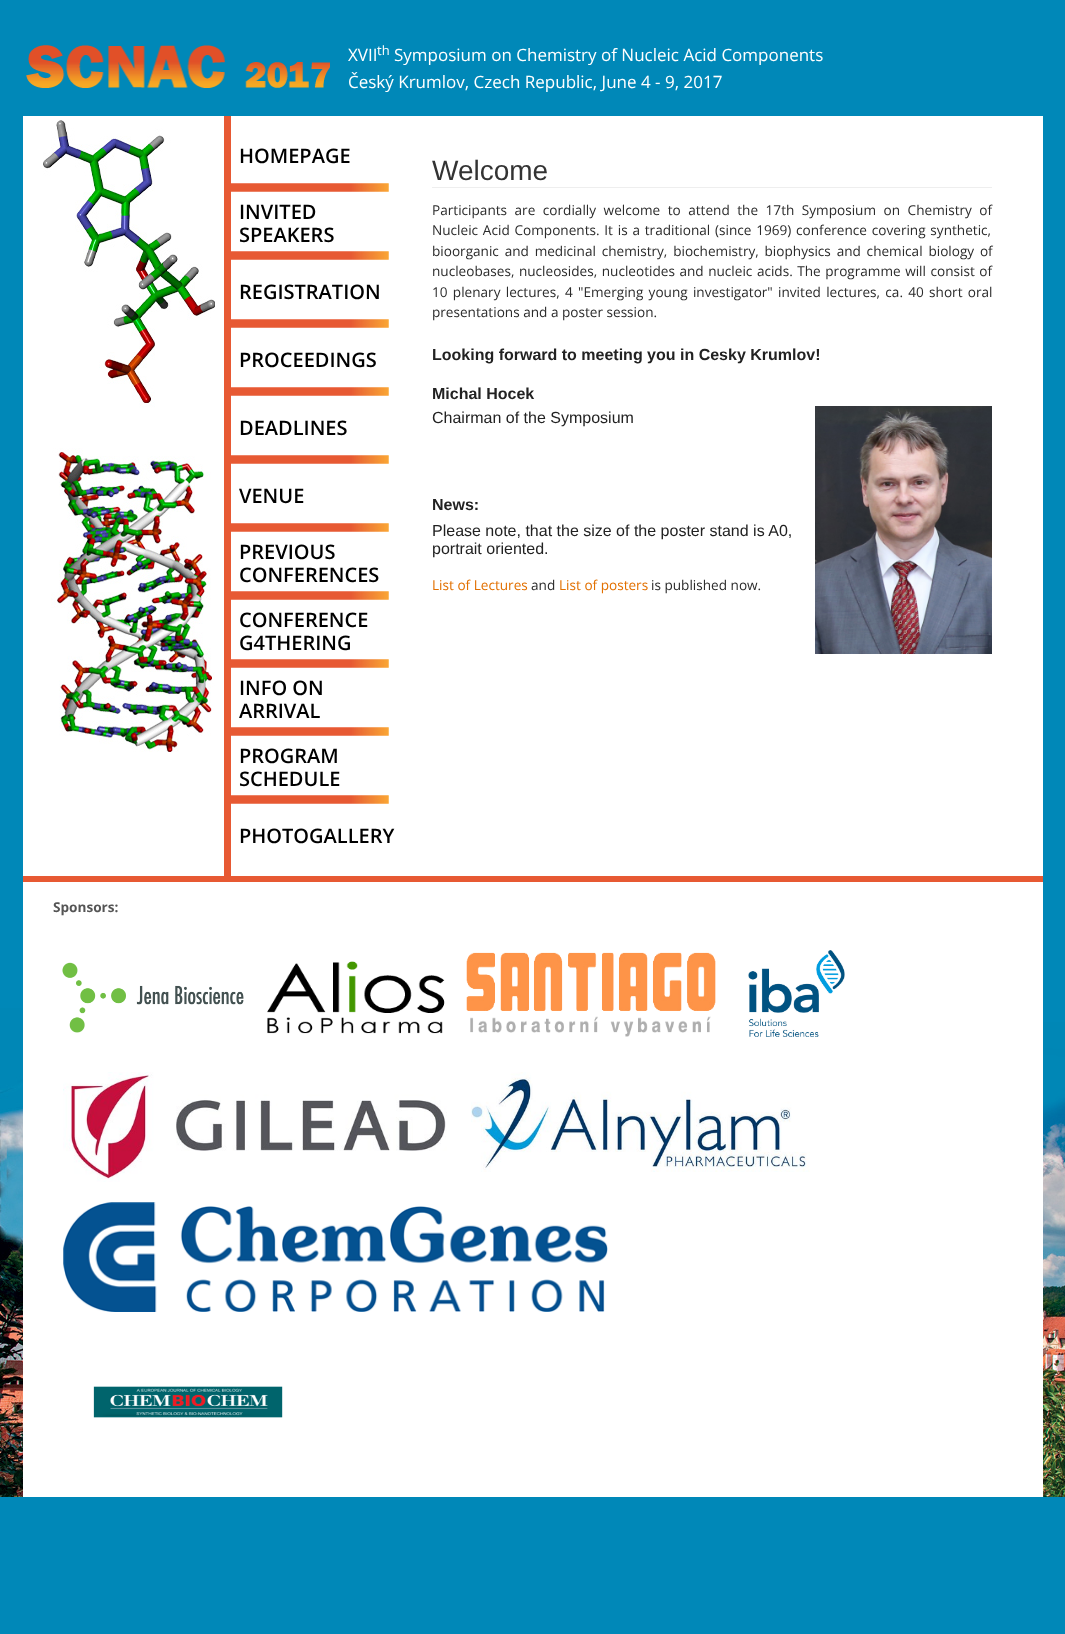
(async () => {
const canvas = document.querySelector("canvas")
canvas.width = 1065
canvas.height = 1634
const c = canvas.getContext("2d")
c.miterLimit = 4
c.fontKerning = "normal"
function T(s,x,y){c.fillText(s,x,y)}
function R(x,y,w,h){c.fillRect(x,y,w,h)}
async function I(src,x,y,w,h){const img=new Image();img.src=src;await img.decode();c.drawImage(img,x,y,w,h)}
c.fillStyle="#0088b8"
R(0,0,1065,1634)
await I("1.png",0,1008,23,489)
await I("2.png",1043,1022,22,475)
await I("3.png",26,45,304,43)
c.font="17px Open Sans"
c.fillStyle="#fff"
T("XVII",348,61)
c.font="13px Open Sans"
T("th",377,55)
c.font="17px Open Sans"
T("Symposium on Chemistry of Nucleic Acid Components",394,61)
T("Český Krumlov, Czech Republic, June 4 - 9, 2017",348,88)
R(23,116,1020,760)
c.fillStyle="#e75933"
R(224,116,7,760)
await I("4.png",43,120,172,632)
await I("5.png",231,183,158,9)
c.font="600 20px Open Sans"
c.fillStyle="#000"
T("HOMEPAGE",239,163)
await I("5.png",231,251,158,9)
T("INVITED",239,219)
T("SPEAKERS",239,242)
await I("5.png",231,319,158,9)
T("REGISTRATION",239,299)
await I("5.png",231,387,158,9)
T("PROCEEDINGS",239,367)
await I("5.png",231,455,158,9)
T("DEADLINES",239,435)
await I("5.png",231,523,158,9)
T("VENUE",239,503)
await I("5.png",231,591,158,9)
T("PREVIOUS",239,559)
T("CONFERENCES",239,582)
await I("5.png",231,659,158,9)
T("CONFERENCE",239,627)
T("G4THERING",239,650)
await I("5.png",231,727,158,9)
T("INFO ON",239,695)
T("ARRIVAL",239,718)
await I("5.png",231,795,158,9)
T("PROGRAM",239,763)
T("SCHEDULE",239,786)
T("PHOTOGALLERY",239,843)
c.fillStyle="#eee"
R(432,187,560,1)
c.font="28px Liberation Sans"
c.fillStyle="#333"
T("Welcome",432,180)
c.wordSpacing="4px"
c.font="13.6px Open Sans"
c.fillStyle="#2b2b2b"
T("Participants are cordially welcome to attend the 17th Symposium on Chemistry of",432,215)
c.wordSpacing="1.25px"
T("Nucleic Acid Components. It is a traditional (since 1969) conference covering synthetic,",432,235)
c.wordSpacing="2.25px"
T("bioorganic and medicinal chemistry, biochemistry, biophysics and chemical biology of",432,256)
c.wordSpacing="1px"
T("nucleobases, nucleosides, nucleotides and nucleic acids. The programme will consist of",432,276)
c.wordSpacing="1.75px"
T("10 plenary lectures, 4 \"Emerging young investigator\" invited lectures, ca. 40 short oral",432,297)
c.wordSpacing="0px"
T("presentations and a poster session.",432,317)
c.font="bold 16px Liberation Sans"
c.fillStyle="#222"
T("Looking forward to meeting you in Cesky Krumlov!",432,360)
T("Michal Hocek",432,399)
c.font="16px Liberation Sans"
T("Chairman of the Symposium",432,423)
await I("6.png",815,406,177,248)
c.font="bold 16px Liberation Sans"
T("News:",432,510)
c.font="16px Liberation Sans"
T("Please note, that the size of the poster stand is A0,",432,536)
T("portrait oriented.",432,554)
c.font="13.6px Open Sans"
c.fillStyle="#e27000"
T("List of Lectures",432,590)
c.fillStyle="#2b2b2b"
T("and",531,590)
c.fillStyle="#e27000"
T("List of posters",559,590)
c.fillStyle="#2b2b2b"
T("is published now.",651,590)
c.fillStyle="#fff"
R(23,882,1020,615)
c.fillStyle="#e75933"
R(23,876,1020,6)
c.font="bold 13.6px Open Sans"
c.fillStyle="#555"
T("Sponsors:",53,912)
await I("7.png",62,962,182,71)
await I("8.png",267,961,178,73)
await I("9.png",466,952,250,85)
await I("10.png",748,950,97,87)
await I("11.png",63,1072,384,110)
await I("12.png",471,1072,339,100)
await I("13.png",63,1202,545,110)
await I("14.png",93,1386,190,32)
})()
